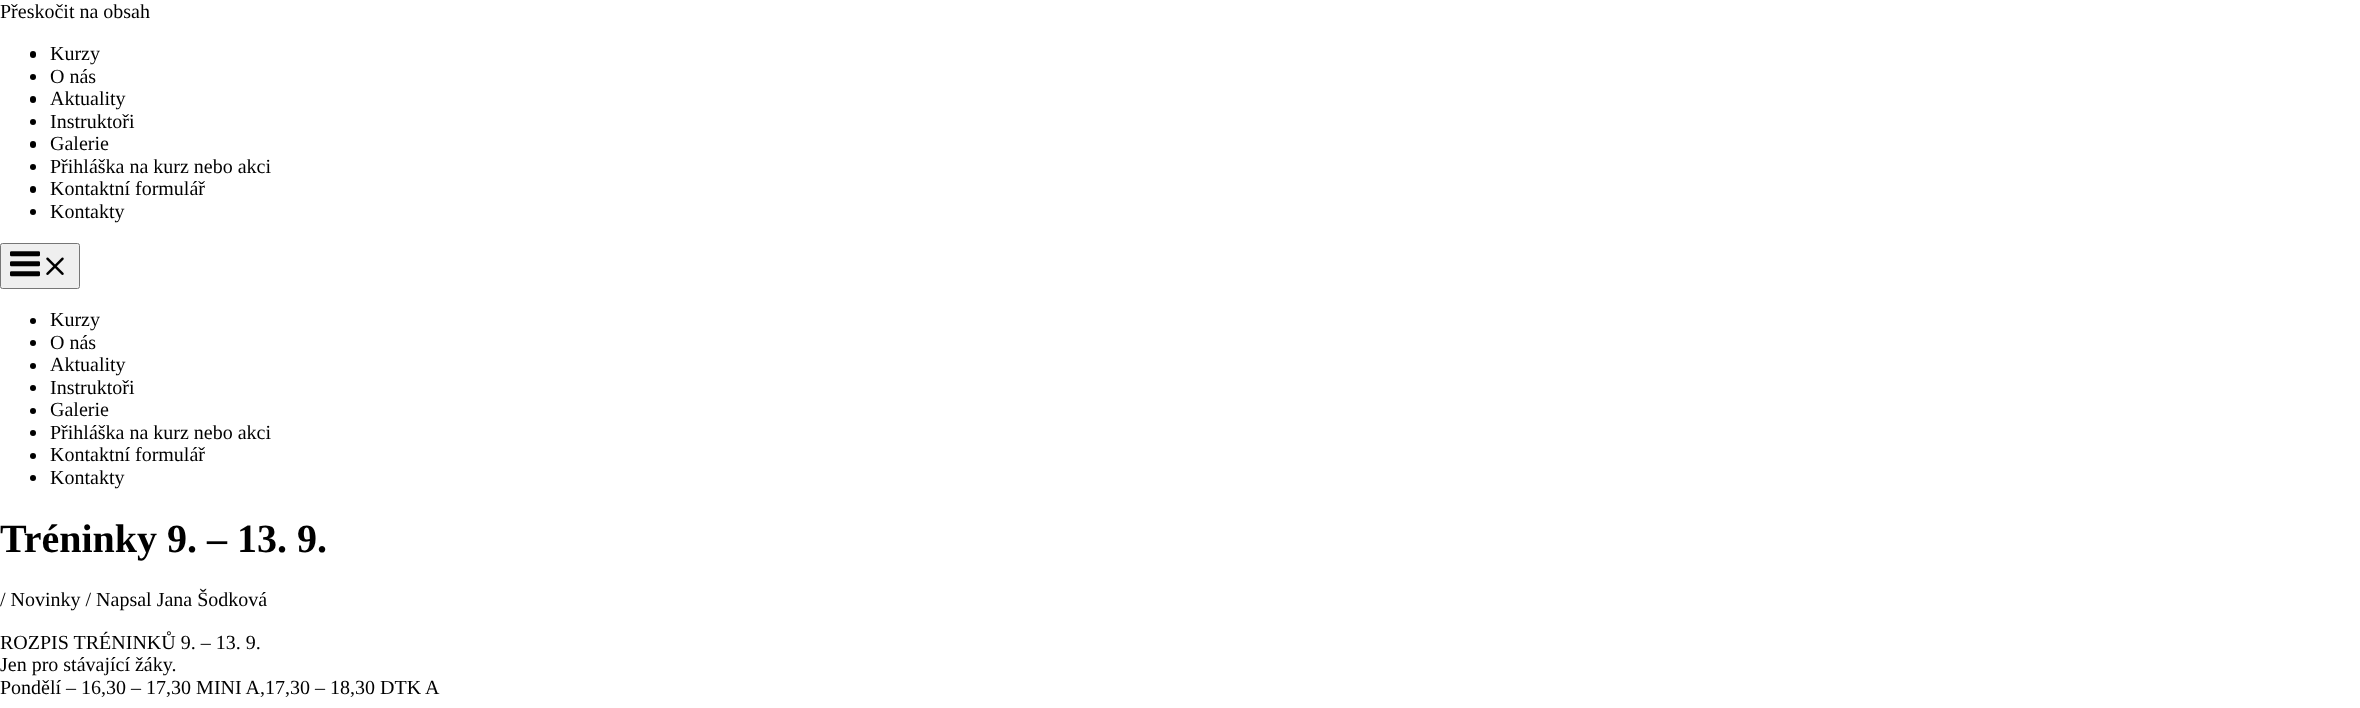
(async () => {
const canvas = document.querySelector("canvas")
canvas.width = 2360
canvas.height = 708
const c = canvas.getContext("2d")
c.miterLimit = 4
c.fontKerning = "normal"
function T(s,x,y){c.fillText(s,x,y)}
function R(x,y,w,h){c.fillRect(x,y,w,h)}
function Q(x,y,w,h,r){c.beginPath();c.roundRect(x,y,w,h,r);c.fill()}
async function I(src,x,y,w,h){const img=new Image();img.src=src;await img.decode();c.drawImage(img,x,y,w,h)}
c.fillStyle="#fff"
R(0,0,2360,708)
c.font="20px Liberation Serif"
c.fillStyle="#000"
T("Přeskočit na obsah",0,18)
Q(30,51,6,7,3)
T("Kurzy",50,60)
c.beginPath()
c.arc(33,77,3,0,7)
c.fill()
T("O nás",50,83)
Q(30,96,6,7,3)
T("Aktuality",50,105)
c.beginPath()
c.arc(33,122,3,0,7)
c.fill()
T("Instruktoři",50,128)
Q(30,141,6,7,3)
T("Galerie",50,150)
c.beginPath()
c.arc(33,167,3,0,7)
c.fill()
T("Přihláška na kurz nebo akci",50,173)
Q(30,186,6,7,3)
T("Kontaktní formulář",50,195)
c.beginPath()
c.arc(33,212,3,0,7)
c.fill()
T("Kontakty",50,218)
c.fillStyle="#efefef"
c.beginPath()
c.roundRect(.5,243.5,79,45,2)
c.fill()
c.strokeStyle="#767676"
c.stroke()
await I("1.png",10,251,30,26)
await I("2.png",46,257,18,18)
c.fillStyle="#000"
c.beginPath()
c.arc(33,321,3,0,7)
c.fill()
T("Kurzy",50,326)
c.beginPath()
c.arc(33,343,3,0,7)
c.fill()
T("O nás",50,349)
c.beginPath()
c.arc(33,366,3,0,7)
c.fill()
T("Aktuality",50,371)
c.beginPath()
c.arc(33,388,3,0,7)
c.fill()
T("Instruktoři",50,394)
c.beginPath()
c.arc(33,411,3,0,7)
c.fill()
T("Galerie",50,416)
c.beginPath()
c.arc(33,433,3,0,7)
c.fill()
T("Přihláška na kurz nebo akci",50,439)
c.beginPath()
c.arc(33,456,3,0,7)
c.fill()
T("Kontaktní formulář",50,461)
c.beginPath()
c.arc(33,478,3,0,7)
c.fill()
T("Kontakty",50,484)
c.font="bold 40px Liberation Serif"
T("Tréninky 9. – 13. 9.",0,552)
c.font="20px Liberation Serif"
T("/ Novinky / Napsal Jana Šodková",0,606)
T("ROZPIS TRÉNINKŮ 9. – 13. 9.",0,649)
T("Jen pro stávající žáky.",0,671)
T("Pondělí – 16,30 – 17,30 MINI A,17,30 – 18,30 DTK A",0,694)
})()
